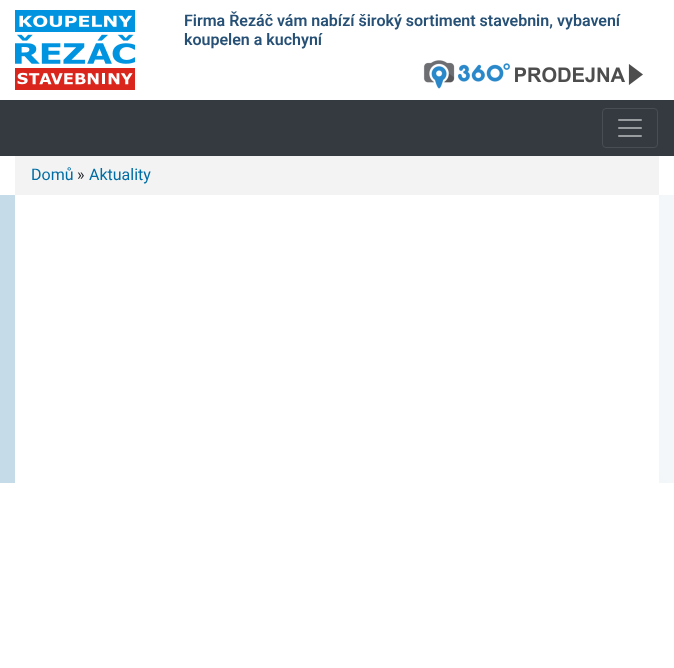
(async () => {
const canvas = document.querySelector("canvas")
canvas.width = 674
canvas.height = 668
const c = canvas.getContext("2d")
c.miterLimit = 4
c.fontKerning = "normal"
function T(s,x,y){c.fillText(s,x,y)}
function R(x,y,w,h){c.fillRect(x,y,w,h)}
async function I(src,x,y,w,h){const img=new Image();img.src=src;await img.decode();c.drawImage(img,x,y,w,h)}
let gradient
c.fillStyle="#fff"
R(0,0,674,668)
await I("1.png",15,10,120,80)
c.font="600 16px Roboto"
c.fillStyle="#265075"
T("Firma Řezáč vám nabízí široký sortiment stavebnin, vybavení",184,26)
T("koupelen a kuchyní",184,45)
await I("2.png",423,60,220,29)
c.fillStyle="#343a40"
R(0,100,674,56)
c.beginPath()
c.roundRect(602.5,108.5,55,39,3.5)
c.strokeStyle="#484e53"
c.stroke()
await I("3.png",618,119,24,18)
c.fillStyle="#f3f3f3"
R(15,156,644,39)
c.font="16px Roboto"
c.fillStyle="#006da5"
T("Domů",31,180)
c.fillStyle="#212529"
T("»",77,180)
c.fillStyle="#006da5"
T("Aktuality",89,180)
gradient = c.createLinearGradient(97,580,578,98)
gradient.addColorStop(.3,"#c5dbe8")
gradient.addColorStop(.7,"#f3f7fa")
c.fillStyle = gradient
R(0,195,674,288)
c.fillStyle="#fff"
R(15,195,644,288)
})()
